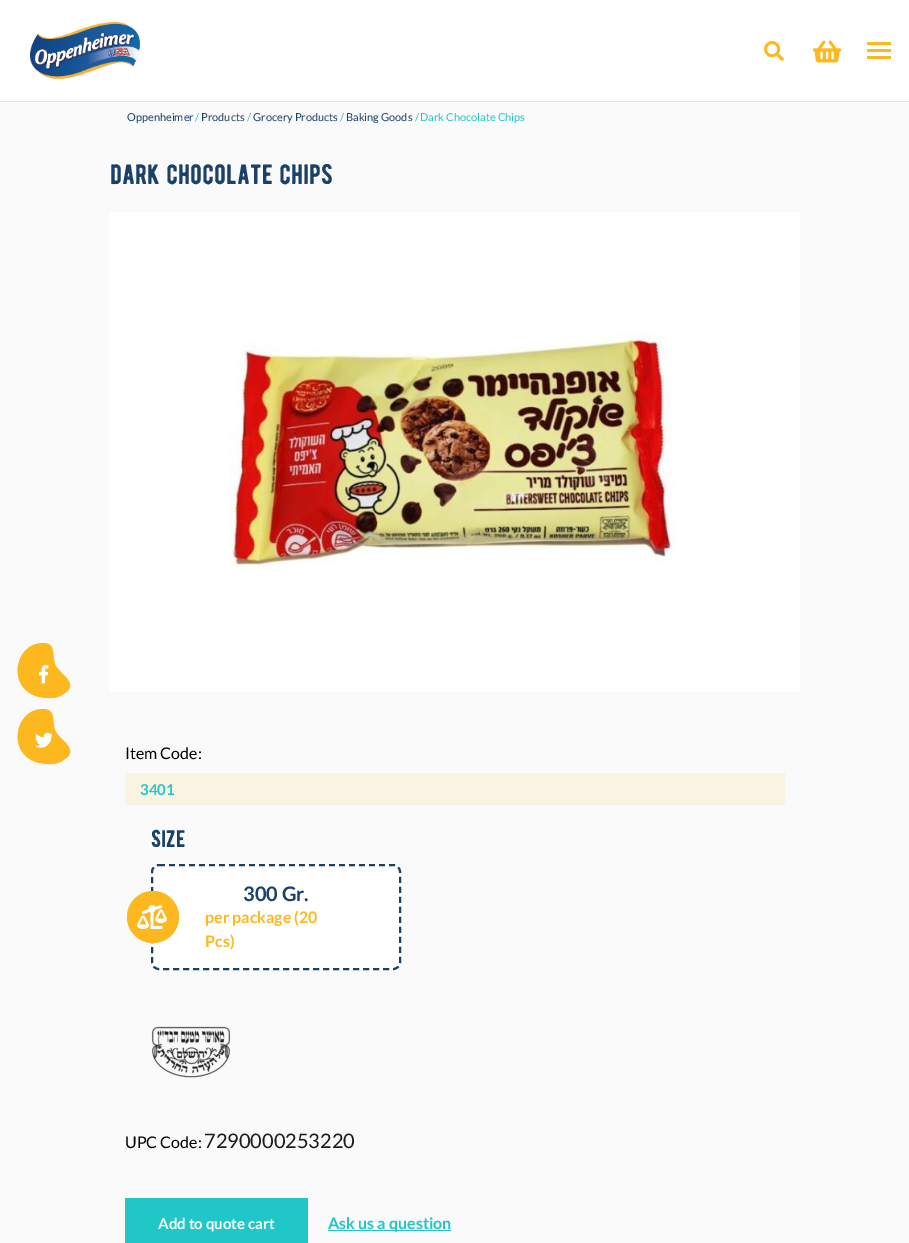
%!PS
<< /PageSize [909 1243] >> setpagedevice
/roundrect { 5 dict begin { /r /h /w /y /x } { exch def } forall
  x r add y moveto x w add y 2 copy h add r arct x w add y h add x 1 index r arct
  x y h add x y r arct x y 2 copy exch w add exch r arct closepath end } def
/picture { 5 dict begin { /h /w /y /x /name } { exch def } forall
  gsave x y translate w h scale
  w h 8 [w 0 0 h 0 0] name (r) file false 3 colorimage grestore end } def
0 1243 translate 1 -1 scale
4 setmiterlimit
0.98 setgray
0 0 909 1243 rectfill
1 setgray
0 0 909 101 rectfill
0.89 setgray
0 101 909 1 rectfill
(img1.rgb) 30 22 111 58 picture
0.992 0.722 0.122 setrgbcolor
867 42 24 3 rectfill
867 49 24 3 rectfill
867 56 24 3 rectfill
(img2.rgb) 764 41 20 20 picture
(img3.rgb) 813 40 29 23 picture
newpath 43 643 moveto 11 643 5 699 50 698 curveto 56 698 60 697 65 693 curveto 80 683 58 673 55 664 curveto 52 655 56 643 43 643 curveto closepath fill
(img4.rgb) 39 665 10 19 picture
newpath 43 709 moveto 11 709 5 765 50 764 curveto 56 764 60 763 65 759 curveto 80 749 58 739 55 730 curveto 52 721 56 709 43 709 curveto closepath fill
(img5.rgb) 35 732 17 16 picture
/Lato-Regular [11 0 0 -11 0 0] selectfont
0.102 0.255 0.416 setrgbcolor
127 121 moveto (Oppenheimer) show
0.129 0.78 0.78 setrgbcolor
195 121 moveto (/) show
0.102 0.255 0.416 setrgbcolor
201 121 moveto (Products) show
0.129 0.78 0.78 setrgbcolor
247 121 moveto (/) show
0.102 0.255 0.416 setrgbcolor
253 121 moveto (Grocery Products) show
0.129 0.78 0.78 setrgbcolor
340 121 moveto (/) show
0.102 0.255 0.416 setrgbcolor
346 121 moveto (Baking Goods) show
0.129 0.78 0.78 setrgbcolor
415 121 moveto (/) show
420 121 moveto (Dark Chocolate Chips) show
/Lato-Regular [16 0 0 -16 0 0] selectfont
0 setgray
125 759 moveto (Item Code:) show
0.98 0.953 0.894 setrgbcolor
125 773 660 32 rectfill
/Lato-Bold [15 0 0 -15 0 0] selectfont
0.129 0.78 0.78 setrgbcolor
140 795 moveto (3401) show
/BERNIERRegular-Regular [24 0 0 -24 0 0] selectfont
0.102 0.255 0.416 setrgbcolor
151 847 moveto (Size) show
1 setgray
151 864 250 106 8 roundrect fill
0.102 0.255 0.416 setrgbcolor
2 setlinewidth
[6 4] 0 setdash
newpath 159 865 moveto 393 865 lineto 397 865 400 868 400 872 curveto 400 962 lineto 400 966 397 969 393 969 curveto 159 969 lineto 155 969 152 966 152 962 curveto 152 872 lineto 152 868 155 865 159 865 curveto closepath stroke
0.992 0.722 0.122 setrgbcolor
newpath 153 917 26 0 360 arc closepath fill
(img6.rgb) 137 905 30 24 picture
/Lato-Bold [20 0 0 -20 0 0] selectfont
0.102 0.255 0.416 setrgbcolor
243 901 moveto (300 Gr.) show
/Lato-Bold [16 0 0 -16 0 0] selectfont
0.992 0.722 0.122 setrgbcolor
205 923 moveto (per package \(20) show
205 947 moveto (Pcs\)) show
(img7.rgb) 151 1026 80 52 picture
/Lato-Regular [16 0 0 -16 0 0] selectfont
0 setgray
125 1148 moveto (UPC Code:) show
/Lato-Regular [20 0 0 -20 0 0] selectfont
0.11 setgray
204 1148 moveto (7290000253220) show
0.129 0.78 0.78 setrgbcolor
125 1198 183 45 rectfill
/Lato-Bold [15 0 0 -15 0 0] selectfont
1 setgray
158 1229 moveto (Add to quote cart) show
0.129 0.78 0.78 setrgbcolor
328 1230 123 1 rectfill
/Lato-Bold [16 0 0 -16 0 0] selectfont
328 1229 moveto (Ask us a question) show
/BERNIERRegular-Regular [28 0 0 -28 0 0] selectfont
0.102 0.255 0.416 setrgbcolor
110 184 moveto (dark chocolate chips) show
1 setgray
110 212 690 480 rectfill
(img8.rgb) 230 330 447 242 picture
showpage
